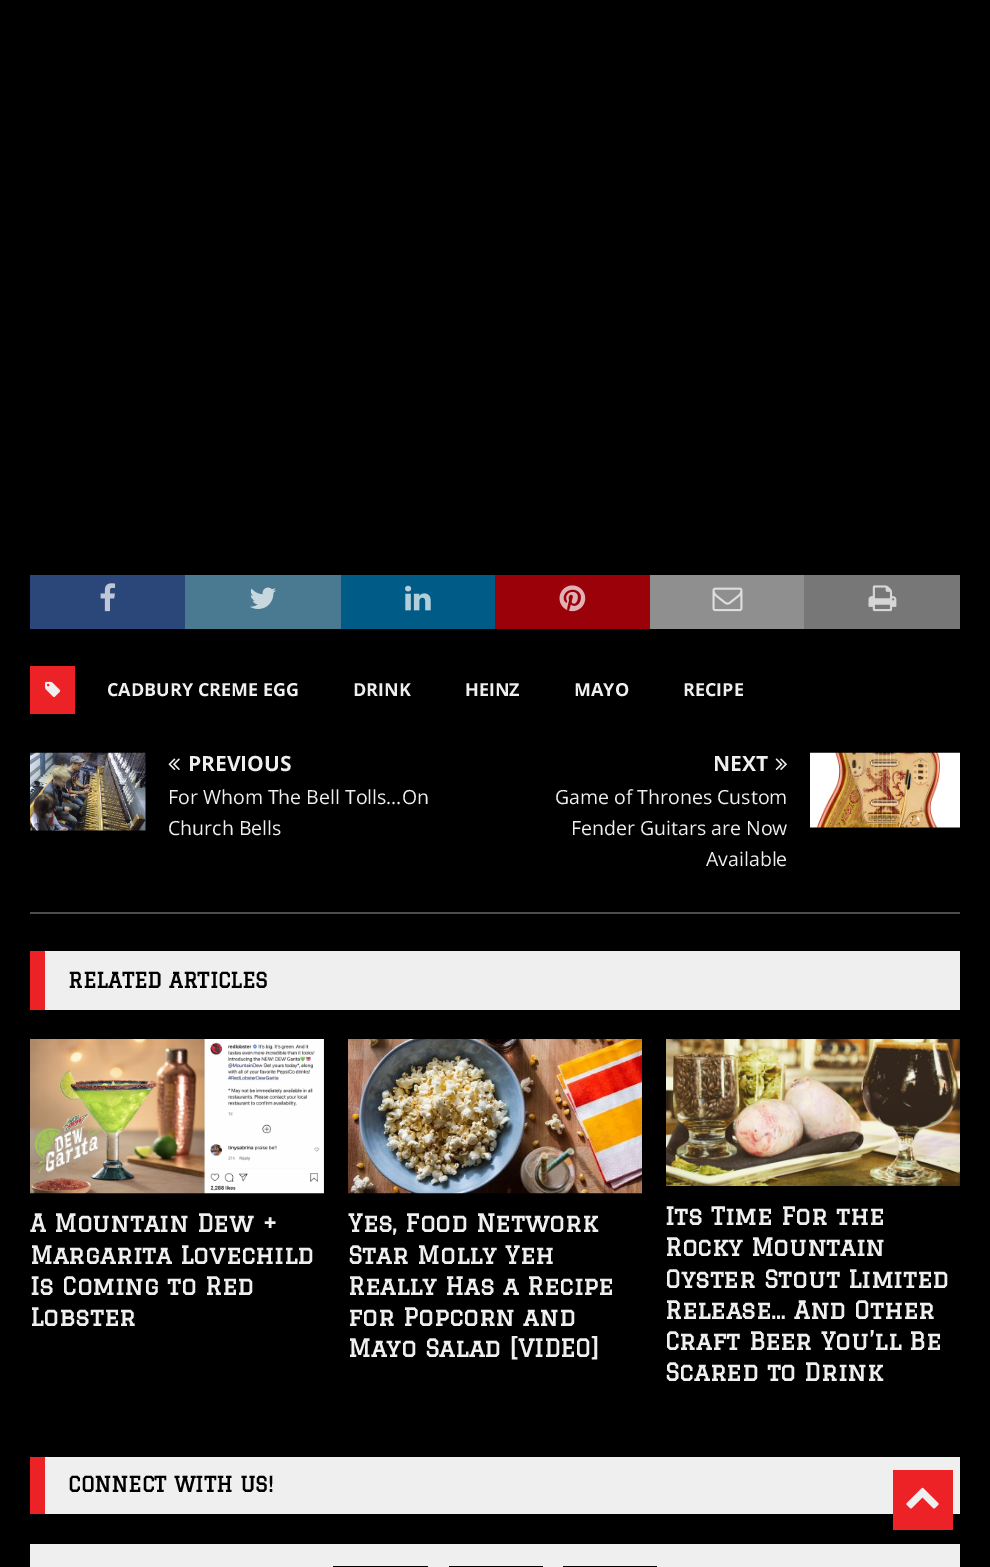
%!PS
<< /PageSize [990 1567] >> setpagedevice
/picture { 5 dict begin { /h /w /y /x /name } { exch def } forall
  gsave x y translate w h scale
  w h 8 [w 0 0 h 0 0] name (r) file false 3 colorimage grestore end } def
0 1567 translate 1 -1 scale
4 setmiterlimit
0 setgray
0 0 990 1567 rectfill
0.169 0.275 0.475 setrgbcolor
30 575 155 54 rectfill
(img1.rgb) 100 583 16 29 picture
0.29 0.475 0.573 setrgbcolor
185 575 156 54 rectfill
(img2.rgb) 250 587 26 22 picture
0 0.361 0.525 setrgbcolor
341 575 154 54 rectfill
(img3.rgb) 405 585 26 26 picture
0.608 0.004 0.035 setrgbcolor
495 575 155 54 rectfill
(img4.rgb) 559 585 27 27 picture
0.561 setgray
650 575 154 54 rectfill
(img5.rgb) 712 587 31 25 picture
0.467 setgray
804 575 156 54 rectfill
(img6.rgb) 868 585 29 27 picture
0.925 0.133 0.153 setrgbcolor
30 666 45 48 rectfill
(img7.rgb) 45 681 16 16 picture
/OpenSans-Bold [18 0 0 -18 0 0] selectfont
0.937 setgray
107 696 moveto (CADBURY CREME EGG) show
353 696 moveto (DRINK) show
465 696 moveto (HEINZ) show
574 696 moveto (MAYO) show
683 696 moveto (RECIPE) show
0.302 setgray
30 912 930 2 rectfill
(img8.rgb) 30 752 116 79 picture
(img9.rgb) 168 758 12 12 picture
/OpenSans-Bold [21 0 0 -21 0 0] selectfont
0.937 setgray
188 771 moveto (PREVIOUS) show
/OpenSans-Regular [19.5 0 0 -19.5 0 0] selectfont
168 804 moveto (For Whom The Bell Tolls…On) show
168 835 moveto (Church Bells) show
/OpenSans-Bold [21 0 0 -21 0 0] selectfont
713 771 moveto (NEXT) show
(img10.rgb) 775 758 12 12 picture
(img11.rgb) 810 752 150 76 picture
/OpenSans-Regular [19.5 0 0 -19.5 0 0] selectfont
555 804 moveto (Game of Thrones Custom) show
571 835 moveto (Fender Guitars are Now) show
706 866 moveto (Available) show
45 951 915 59 rectfill
0.925 0.133 0.153 setrgbcolor
30 951 15 59 rectfill
/Graduate-Bold [21 0 0 -21 0 0] selectfont
0 setgray
68 988 moveto (RELATED ARTICLES) show
(img12.rgb) 30 1039 294 155 picture
/Graduate-Bold [24 0 0 -24 0 0] selectfont
0.937 setgray
30 1232 moveto (A Mountain Dew +) show
30 1264 moveto (Margarita Lovechild) show
30 1295 moveto (Is Coming to Red) show
30 1326 moveto (Lobster) show
(img13.rgb) 348 1039 294 155 picture
348 1232 moveto (Yes, Food Network) show
348 1264 moveto (Star Molly Yeh) show
348 1295 moveto (Really Has a Recipe) show
348 1326 moveto (for Popcorn and) show
348 1357 moveto (Mayo Salad [VIDEO]) show
(img14.rgb) 666 1039 294 147 picture
665 1225 moveto (Its Time For the) show
665 1256 moveto (Rocky Mountain) show
665 1288 moveto (Oyster Stout Limited) show
665 1319 moveto (Release… And Other) show
665 1350 moveto (Craft Beer You’ll Be) show
665 1381 moveto (Scared to Drink) show
45 1457 915 57 rectfill
0.925 0.133 0.153 setrgbcolor
30 1457 15 57 rectfill
/Graduate-Bold [21 0 0 -21 0 0] selectfont
0 setgray
68 1492 moveto (CONNECT WITH US!) show
0.937 setgray
30 1544 930 23 rectfill
0 setgray
333 1566 95 1 rectfill
449 1566 94 1 rectfill
563 1566 94 1 rectfill
0.925 0.133 0.153 setrgbcolor
893 1470 60 60 rectfill
(img15.rgb) 906 1487 33 22 picture
showpage
